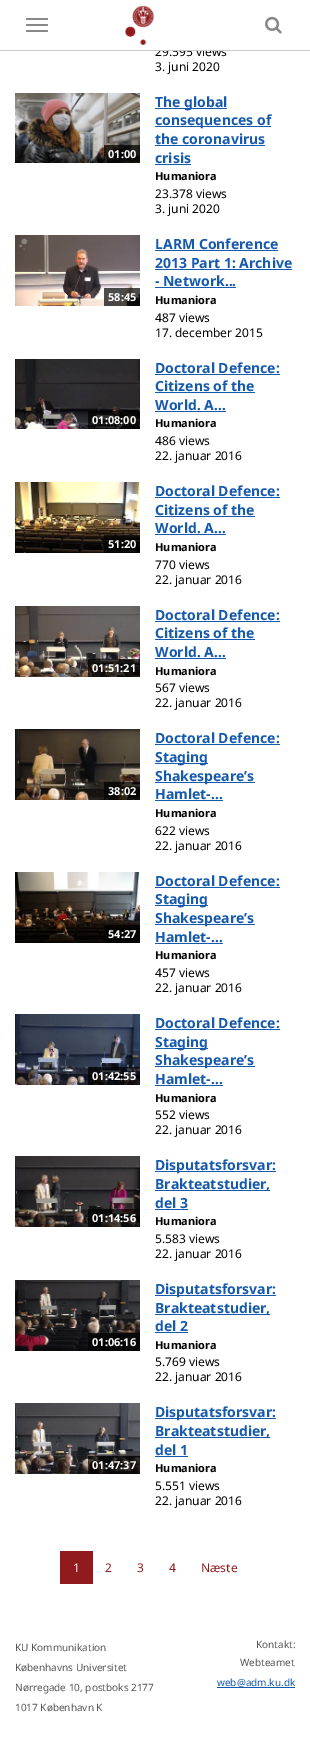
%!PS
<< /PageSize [310 1747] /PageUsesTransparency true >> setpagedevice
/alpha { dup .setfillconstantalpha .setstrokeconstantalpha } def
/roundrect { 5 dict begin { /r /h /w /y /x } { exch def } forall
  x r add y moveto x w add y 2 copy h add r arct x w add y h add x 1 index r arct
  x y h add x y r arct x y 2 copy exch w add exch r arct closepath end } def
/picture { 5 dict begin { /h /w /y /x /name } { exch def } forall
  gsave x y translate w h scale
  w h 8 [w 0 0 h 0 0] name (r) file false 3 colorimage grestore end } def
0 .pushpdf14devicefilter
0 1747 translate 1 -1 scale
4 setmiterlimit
1 setgray
0 0 310 1747 rectfill
/NotoSans-Regular [12 0 0 -12 0 0] selectfont
0 setgray
155 56 moveto (29.595 views) show
1 setgray
155 47 72 3 rectfill
0.8 setgray
0 50 310 1 rectfill
0.533 setgray
26 18 22 2 1 roundrect fill
26 24 22 2 1 roundrect fill
26 30 22 2 1 roundrect fill
(img1.rgb) 124 5 31 40 picture
(img2.rgb) 265 16 17 18 picture
0 setgray
155 71 moveto (3. juni 2020) show
(img3.rgb) 15 93 125 70 picture
0.7 alpha
104 145 36 18 rectfill
/NotoSans-Bold [11 0 0 -11 0 0] selectfont
1 alpha
1 setgray
108 158 moveto (01:00) show
0.086 0.353 0.678 setrgbcolor
155 108 72 1 rectfill
/NotoSans-Bold [14 0 0 -14 0 0] selectfont
155 107 moveto (The global) show
155 126 116 1 rectfill
155 125 moveto (consequences of) show
155 144 moveto (the coronavirus) show
155 145 110 1 rectfill
155 163 moveto (crisis) show
155 164 36 1 rectfill
/NotoSans-Bold [11 0 0 -11 0 0] selectfont
0 setgray
155 180 moveto (Humaniora) show
/NotoSans-Regular [12 0 0 -12 0 0] selectfont
155 198 moveto (23.378 views) show
155 213 moveto (3. juni 2020) show
(img4.rgb) 15 235 125 71 picture
0.7 alpha
104 288 36 18 rectfill
/NotoSans-Bold [11 0 0 -11 0 0] selectfont
1 alpha
1 setgray
108 301 moveto (58:45) show
/NotoSans-Bold [14 0 0 -14 0 0] selectfont
0.086 0.353 0.678 setrgbcolor
155 249 moveto (LARM Conference) show
155 250 123 1 rectfill
155 268 moveto (2013 Part 1: Archive) show
155 269 137 1 rectfill
155 286 moveto (- Network...) show
155 287 81 1 rectfill
/NotoSans-Bold [11 0 0 -11 0 0] selectfont
0 setgray
155 304 moveto (Humaniora) show
/NotoSans-Regular [12 0 0 -12 0 0] selectfont
155 322 moveto (487 views) show
155 337 moveto (17. december 2015) show
(img5.rgb) 15 359 125 70 picture
0.7 alpha
88 411 52 18 rectfill
/NotoSans-Bold [11 0 0 -11 0 0] selectfont
1 alpha
1 setgray
92 424 moveto (01:08:00) show
/NotoSans-Bold [14 0 0 -14 0 0] selectfont
0.086 0.353 0.678 setrgbcolor
155 373 moveto (Doctoral Defence:) show
155 374 125 1 rectfill
155 391 moveto (Citizens of the) show
155 392 100 1 rectfill
155 410 moveto (World. A...) show
155 411 71 1 rectfill
/NotoSans-Bold [11 0 0 -11 0 0] selectfont
0 setgray
155 427 moveto (Humaniora) show
/NotoSans-Regular [12 0 0 -12 0 0] selectfont
155 445 moveto (486 views) show
155 460 moveto (22. januar 2016) show
(img6.rgb) 15 482 125 71 picture
0.7 alpha
104 535 36 18 rectfill
/NotoSans-Bold [11 0 0 -11 0 0] selectfont
1 alpha
1 setgray
108 548 moveto (51:20) show
/NotoSans-Bold [14 0 0 -14 0 0] selectfont
0.086 0.353 0.678 setrgbcolor
155 496 moveto (Doctoral Defence:) show
155 497 125 1 rectfill
155 515 moveto (Citizens of the) show
155 516 100 1 rectfill
155 533 moveto (World. A...) show
155 534 71 1 rectfill
/NotoSans-Bold [11 0 0 -11 0 0] selectfont
0 setgray
155 551 moveto (Humaniora) show
/NotoSans-Regular [12 0 0 -12 0 0] selectfont
155 569 moveto (770 views) show
155 584 moveto (22. januar 2016) show
(img7.rgb) 15 606 125 71 picture
0.7 alpha
88 659 52 18 rectfill
/NotoSans-Bold [11 0 0 -11 0 0] selectfont
1 alpha
1 setgray
92 672 moveto (01:51:21) show
/NotoSans-Bold [14 0 0 -14 0 0] selectfont
0.086 0.353 0.678 setrgbcolor
155 620 moveto (Doctoral Defence:) show
155 621 125 1 rectfill
155 638 moveto (Citizens of the) show
155 639 100 1 rectfill
155 657 moveto (World. A...) show
155 658 71 1 rectfill
/NotoSans-Bold [11 0 0 -11 0 0] selectfont
0 setgray
155 675 moveto (Humaniora) show
/NotoSans-Regular [12 0 0 -12 0 0] selectfont
155 692 moveto (567 views) show
155 707 moveto (22. januar 2016) show
(img8.rgb) 15 729 125 71 picture
0.7 alpha
104 782 36 18 rectfill
/NotoSans-Bold [11 0 0 -11 0 0] selectfont
1 alpha
1 setgray
108 795 moveto (38:02) show
/NotoSans-Bold [14 0 0 -14 0 0] selectfont
0.086 0.353 0.678 setrgbcolor
155 743 moveto (Doctoral Defence:) show
155 744 125 1 rectfill
155 763 53 1 rectfill
155 762 moveto (Staging) show
155 782 100 1 rectfill
155 781 moveto (Shakespeare’s) show
155 799 moveto (Hamlet-...) show
155 800 68 1 rectfill
/NotoSans-Bold [11 0 0 -11 0 0] selectfont
0 setgray
155 817 moveto (Humaniora) show
/NotoSans-Regular [12 0 0 -12 0 0] selectfont
155 835 moveto (622 views) show
155 850 moveto (22. januar 2016) show
(img9.rgb) 15 872 125 71 picture
0.7 alpha
104 925 36 18 rectfill
/NotoSans-Bold [11 0 0 -11 0 0] selectfont
1 alpha
1 setgray
108 938 moveto (54:27) show
/NotoSans-Bold [14 0 0 -14 0 0] selectfont
0.086 0.353 0.678 setrgbcolor
155 886 moveto (Doctoral Defence:) show
155 887 125 1 rectfill
155 905 53 1 rectfill
155 904 moveto (Staging) show
155 924 100 1 rectfill
155 923 moveto (Shakespeare’s) show
155 942 moveto (Hamlet-...) show
155 943 68 1 rectfill
/NotoSans-Bold [11 0 0 -11 0 0] selectfont
0 setgray
155 959 moveto (Humaniora) show
/NotoSans-Regular [12 0 0 -12 0 0] selectfont
155 977 moveto (457 views) show
155 992 moveto (22. januar 2016) show
(img10.rgb) 15 1014 125 71 picture
0.7 alpha
88 1067 52 18 rectfill
/NotoSans-Bold [11 0 0 -11 0 0] selectfont
1 alpha
1 setgray
92 1080 moveto (01:42:55) show
/NotoSans-Bold [14 0 0 -14 0 0] selectfont
0.086 0.353 0.678 setrgbcolor
155 1028 moveto (Doctoral Defence:) show
155 1029 125 1 rectfill
155 1048 53 1 rectfill
155 1047 moveto (Staging) show
155 1066 100 1 rectfill
155 1065 moveto (Shakespeare’s) show
155 1084 moveto (Hamlet-...) show
155 1085 68 1 rectfill
/NotoSans-Bold [11 0 0 -11 0 0] selectfont
0 setgray
155 1102 moveto (Humaniora) show
/NotoSans-Regular [12 0 0 -12 0 0] selectfont
155 1119 moveto (552 views) show
155 1134 moveto (22. januar 2016) show
(img11.rgb) 15 1156 125 71 picture
0.7 alpha
88 1209 52 18 rectfill
/NotoSans-Bold [11 0 0 -11 0 0] selectfont
1 alpha
1 setgray
92 1222 moveto (01:14:56) show
0.086 0.353 0.678 setrgbcolor
155 1171 121 1 rectfill
/NotoSans-Bold [14 0 0 -14 0 0] selectfont
155 1170 moveto (Disputatsforsvar:) show
155 1190 115 1 rectfill
155 1189 moveto (Brakteatstudier,) show
155 1208 moveto (del 3) show
155 1209 33 1 rectfill
/NotoSans-Bold [11 0 0 -11 0 0] selectfont
0 setgray
155 1225 moveto (Humaniora) show
/NotoSans-Regular [12 0 0 -12 0 0] selectfont
155 1243 moveto (5.583 views) show
155 1258 moveto (22. januar 2016) show
(img12.rgb) 15 1280 125 71 picture
0.7 alpha
88 1333 52 18 rectfill
/NotoSans-Bold [11 0 0 -11 0 0] selectfont
1 alpha
1 setgray
92 1346 moveto (01:06:16) show
0.086 0.353 0.678 setrgbcolor
155 1295 121 1 rectfill
/NotoSans-Bold [14 0 0 -14 0 0] selectfont
155 1294 moveto (Disputatsforsvar:) show
155 1314 115 1 rectfill
155 1313 moveto (Brakteatstudier,) show
155 1331 moveto (del 2) show
155 1332 33 1 rectfill
/NotoSans-Bold [11 0 0 -11 0 0] selectfont
0 setgray
155 1349 moveto (Humaniora) show
/NotoSans-Regular [12 0 0 -12 0 0] selectfont
155 1366 moveto (5.769 views) show
155 1381 moveto (22. januar 2016) show
(img13.rgb) 15 1403 125 71 picture
0.7 alpha
88 1456 52 18 rectfill
/NotoSans-Bold [11 0 0 -11 0 0] selectfont
1 alpha
1 setgray
92 1469 moveto (01:47:37) show
0.086 0.353 0.678 setrgbcolor
155 1418 121 1 rectfill
/NotoSans-Bold [14 0 0 -14 0 0] selectfont
155 1417 moveto (Disputatsforsvar:) show
155 1437 115 1 rectfill
155 1436 moveto (Brakteatstudier,) show
155 1455 moveto (del 1) show
155 1456 33 1 rectfill
/NotoSans-Bold [11 0 0 -11 0 0] selectfont
0 setgray
155 1472 moveto (Humaniora) show
/NotoSans-Regular [12 0 0 -12 0 0] selectfont
155 1490 moveto (5.551 views) show
155 1505 moveto (22. januar 2016) show
0.565 0.102 0.118 setrgbcolor
60 1551 33 33 rectfill
1 setgray
73 1572 moveto (1) show
0.565 0.102 0.118 setrgbcolor
105 1572 moveto (2) show
137 1572 moveto (3) show
169 1572 moveto (4) show
201 1572 moveto (Næste) show
/NotoSans-Regular [10 0 0 -10 0 0] selectfont
0.345 setgray
15 1651 moveto (KU Kommunikation) show
15 1671 moveto (Københavns Universitet) show
15 1691 moveto (Nørregade 10, postboks 2177) show
15 1711 moveto (1017 København K) show
256 1648 moveto (Kontakt:) show
240 1666 moveto (Webteamet) show
0.086 0.353 0.678 setrgbcolor
217 1686 moveto (web@adm.ku.dk) show
217 1687 78 1 rectfill
.poppdf14devicefilter showpage
